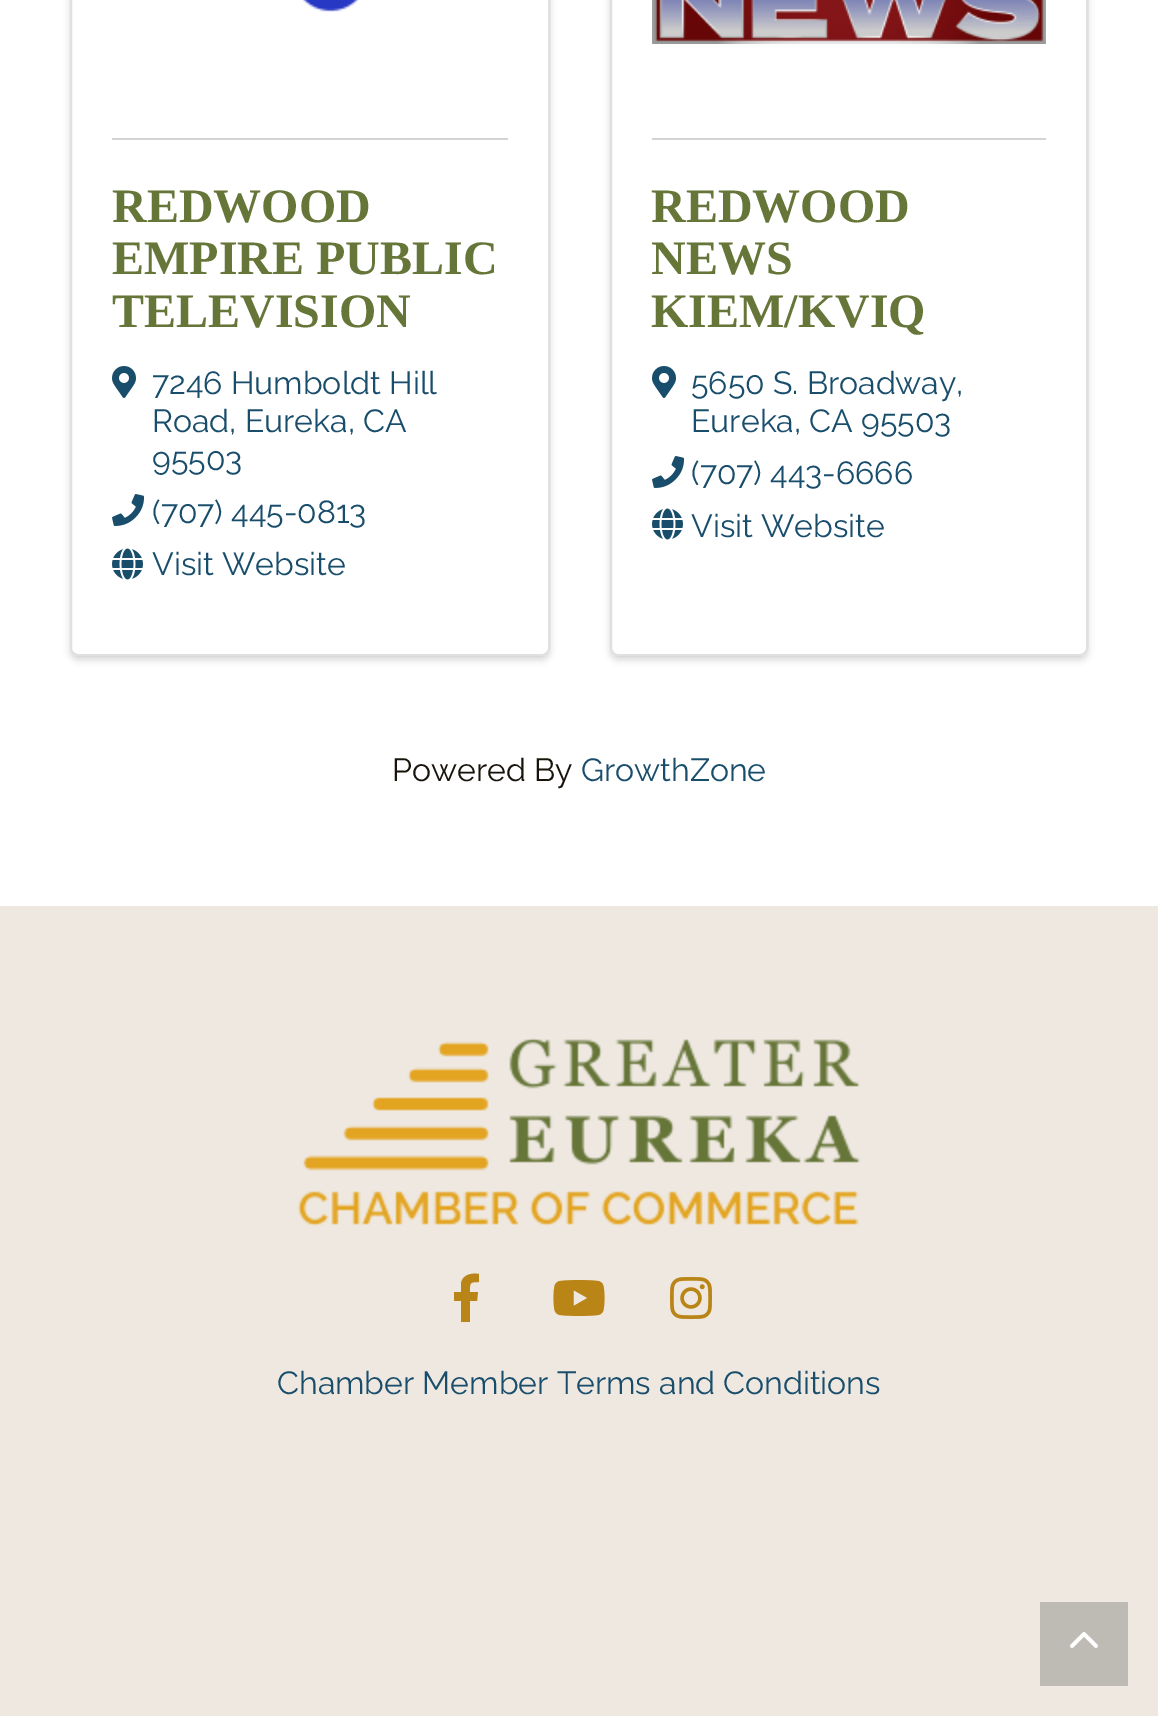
%!PS
<< /PageSize [1158 1716] /PageUsesTransparency true >> setpagedevice
/alpha { dup .setfillconstantalpha .setstrokeconstantalpha } def
/roundrect { 5 dict begin { /r /h /w /y /x } { exch def } forall
  x r add y moveto x w add y 2 copy h add r arct x w add y h add x 1 index r arct
  x y h add x y r arct x y 2 copy exch w add exch r arct closepath end } def
/shadow { 12 dict begin { /a /b /q /h /w /y /x } { exch def } forall gsave /was 0 def
  9 -2 -9 { dup b mul 4 div /e exch def 1 sub .425 mul 2.718 exch exp 1 add a .99 .min exch div /now exch def
    1 1 now sub 1 was sub div sub alpha /was now def
    w h .min e 2 mul add 0 gt { x e sub y e sub w e 2 mul add h e 2 mul add
      q e add b .6 mul add w h .min 2 div e add .min 0 .max roundrect fill } if } for grestore end } def
/picture { 5 dict begin { /h /w /y /x /name } { exch def } forall
  gsave x y translate w h scale
  w h 8 [w 0 0 h 0 0] name (r) file false 3 colorimage grestore end } def
0 .pushpdf14devicefilter
0 1716 translate 1 -1 scale
4 setmiterlimit
1 setgray
0 0 1158 1716 rectfill
0 setgray
70 -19 480 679 8 3.5 0.15 shadow
1 setgray
70 -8 480 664 8 roundrect fill
0.12 alpha
0 setgray
2 setlinewidth
71 -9 478 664 7 roundrect stroke
1 alpha
(img1.rgb) 302 0 57 12 picture
0.831 setgray
112 138 396 2 rectfill
/LiberationSerif-Bold [48 0 0 -48 0 0] selectfont
0.4 0.459 0.22 setrgbcolor
112 222 moveto (REDWOOD) show
112 274 moveto (EMPIRE PUBLIC) show
112 327 moveto (TELEVISION) show
(img2.rgb) 112 366 24 32 picture
/Raleway-Regular [32 0 0 -32 0 0] selectfont
0.094 0.302 0.42 setrgbcolor
152 394 moveto (7246 Humboldt Hill) show
152 432 moveto (Road, Eureka, CA) show
152 470 moveto (95503) show
(img3.rgb) 112 494 33 32 picture
152 523 moveto (\(707\) 445-0813) show
(img4.rgb) 112 548 31 32 picture
152 575 moveto (Visit Website) show
0 setgray
610 -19 478 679 8 3.5 0.15 shadow
1 setgray
610 -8 478 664 8 roundrect fill
0.12 alpha
0 setgray
611 -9 476 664 7 roundrect stroke
1 alpha
(img5.rgb) 652 0 394 44 picture
0.831 setgray
652 138 394 2 rectfill
/LiberationSerif-Bold [48 0 0 -48 0 0] selectfont
0.4 0.459 0.22 setrgbcolor
651 222 moveto (REDWOOD) show
651 274 moveto (NEWS) show
651 327 moveto (KIEM/KVIQ) show
(img2.rgb) 652 366 24 32 picture
/Raleway-Regular [32 0 0 -32 0 0] selectfont
0.094 0.302 0.42 setrgbcolor
691 394 moveto (5650 S. Broadway,) show
691 432 moveto (Eureka, CA 95503) show
(img3.rgb) 652 456 33 32 picture
691 484 moveto (\(707\) 443-6666) show
(img4.rgb) 652 508 31 32 picture
691 537 moveto (Visit Website) show
0.098 0.078 0.043 setrgbcolor
392 781 moveto (Powered By) show
0.094 0.302 0.42 setrgbcolor
581 781 moveto (GrowthZone) show
0.933 0.91 0.882 setrgbcolor
0 906 1158 810 rectfill
(img6.rgb) 297 1038 564 189 picture
0.729 0.522 0.09 setrgbcolor
newpath 461 1322 moveto 461 1301 lineto 454 1301 lineto 454 1292 lineto 461 1292 lineto 461 1283 lineto 463 1274 472 1273 479 1274 curveto 479 1282 lineto 469 1282 470 1283 470 1292 curveto 478 1292 lineto 477 1301 lineto 470 1301 lineto 470 1322 lineto closepath fill
(img7.rgb) 553 1280 52 36 picture
(img8.rgb) 670 1277 42 42 picture
0.094 0.302 0.42 setrgbcolor
277 1394 moveto (Chamber Member Terms and Conditions) show
0.745 0.729 0.706 setrgbcolor
1040 1602 88 84 rectfill
(img9.rgb) 1070 1632 28 16 picture
.poppdf14devicefilter showpage
